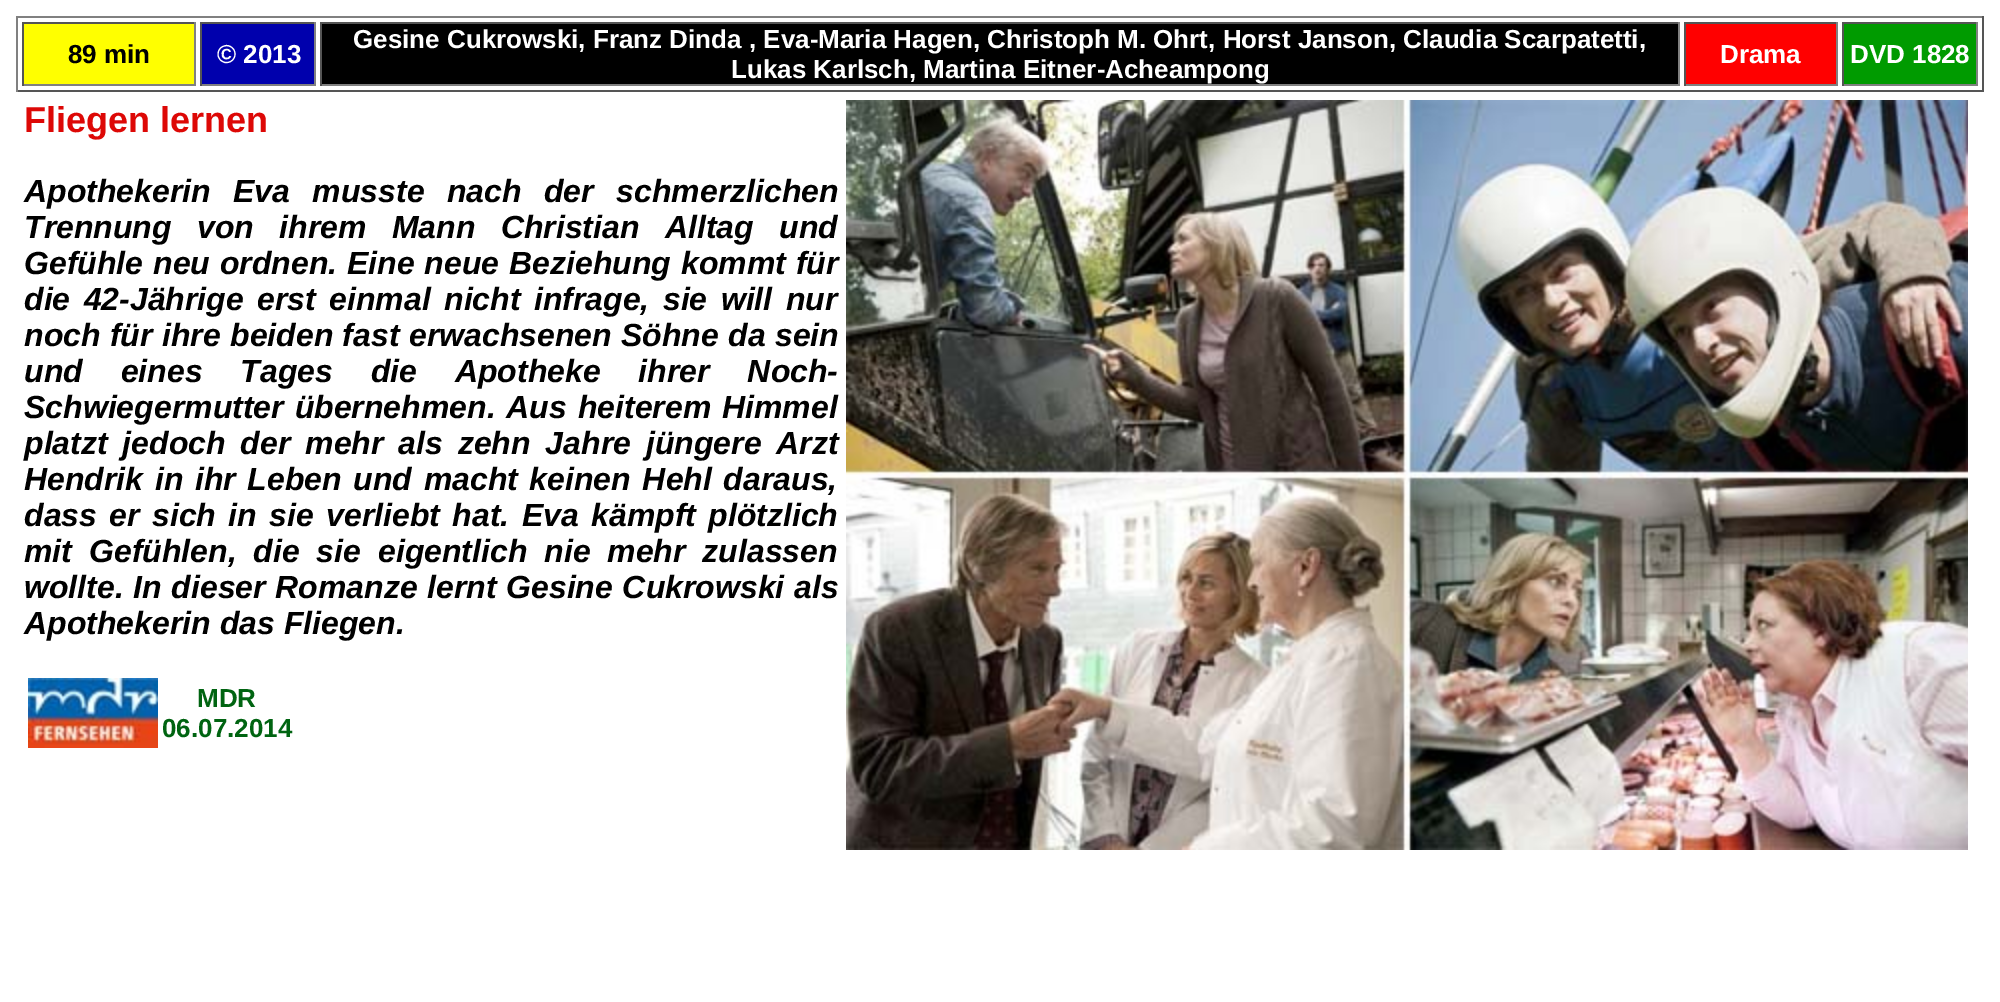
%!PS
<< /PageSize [2000 1002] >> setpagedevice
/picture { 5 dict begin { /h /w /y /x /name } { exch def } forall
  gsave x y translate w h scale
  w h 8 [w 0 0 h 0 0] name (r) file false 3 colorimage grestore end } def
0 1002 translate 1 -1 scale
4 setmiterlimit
1 setgray
0 0 2000 1002 rectfill
0.502 setgray
16 16 1968 2 rectfill
0.333 setgray
1982 16 2 76 rectfill
16 90 1968 2 rectfill
0.502 setgray
16 16 2 76 rectfill
1 1 0 setrgbcolor
24 24 170 60 rectfill
0.333 setgray
22 22 174 2 rectfill
0.502 setgray
194 22 2 64 rectfill
22 84 174 2 rectfill
0.333 setgray
22 22 2 64 rectfill
/LiberationSans-Bold [26 0 0 -26 0 0] selectfont
0 setgray
68 63 moveto (89 min) show
0 0 0.678 setrgbcolor
202 24 112 60 rectfill
0.333 setgray
200 22 116 2 rectfill
0.502 setgray
314 22 2 64 rectfill
200 84 116 2 rectfill
0.333 setgray
200 22 2 64 rectfill
1 setgray
217 63 moveto (© 2013) show
0 setgray
322 24 1356 60 rectfill
0.333 setgray
320 22 1360 2 rectfill
0.502 setgray
1678 22 2 64 rectfill
320 84 1360 2 rectfill
0.333 setgray
320 22 2 64 rectfill
1 setgray
353 48 moveto (Gesine Cukrowski, Franz Dinda , Eva-Maria Hagen, Christoph M. Ohrt, Horst Janson, Claudia Scarpatetti,) show
731 78 moveto (Lukas Karlsch, Martina Eitner-Acheampong) show
1 0 0 setrgbcolor
1686 24 150 60 rectfill
0.333 setgray
1684 22 154 2 rectfill
0.502 setgray
1836 22 2 64 rectfill
1684 84 154 2 rectfill
0.333 setgray
1684 22 2 64 rectfill
1 setgray
1720 63 moveto (Drama) show
0 0.608 0 setrgbcolor
1844 24 132 60 rectfill
0.333 setgray
1842 22 136 2 rectfill
0.502 setgray
1976 22 2 64 rectfill
1842 84 136 2 rectfill
0.333 setgray
1842 22 2 64 rectfill
1 setgray
1850 63 moveto (DVD 1828) show
/LiberationSans-Bold [36 0 0 -36 0 0] selectfont
0.867 0.031 0.024 setrgbcolor
24 132 moveto (Fliegen lernen) show
(img1.rgb) 846 100 1122 750 picture
/LiberationSans-BoldItalic [32 0 0 -32 0 0] selectfont
0 setgray
24 202 moveto 13.5 0 32 (Apothekerin Eva musste nach der schmerzlichen) widthshow
24 238 moveto 16.5 0 32 (Trennung von ihrem Mann Christian Alltag und) widthshow
24 274 moveto 1 0 32 (Gefühle neu ordnen. Eine neue Beziehung kommt für) widthshow
24 310 moveto 4.5 0 32 (die 42-Jährige erst einmal nicht infrage, sie will nur) widthshow
24 346 moveto 0.5 0 32 (noch für ihre beiden fast erwachsenen Söhne da sein) widthshow
24 382 moveto 29 0 32 (und eines Tages die Apotheke ihrer Noch-) widthshow
24 418 moveto 2 0 32 (Schwiegermutter übernehmen. Aus heiterem Himmel) widthshow
24 454 moveto 6 0 32 (platzt jedoch der mehr als zehn Jahre jüngere Arzt) widthshow
24 490 moveto 2.75 0 32 (Hendrik in ihr Leben und macht keinen Hehl daraus,) widthshow
24 526 moveto 3.5 0 32 (dass er sich in sie verliebt hat. Eva kämpft plötzlich) widthshow
24 562 moveto 8 0 32 (mit Gefühlen, die sie eigentlich nie mehr zulassen) widthshow
24 598 moveto 0.75 0 32 (wollte. In dieser Romanze lernt Gesine Cukrowski als) widthshow
24 634 moveto (Apothekerin das Fliegen.) show
(img2.rgb) 28 678 130 70 picture
/LiberationSans-Bold [26 0 0 -26 0 0] selectfont
0 0.392 0.067 setrgbcolor
197 707 moveto (MDR) show
162 737 moveto (06.07.2014) show
showpage
